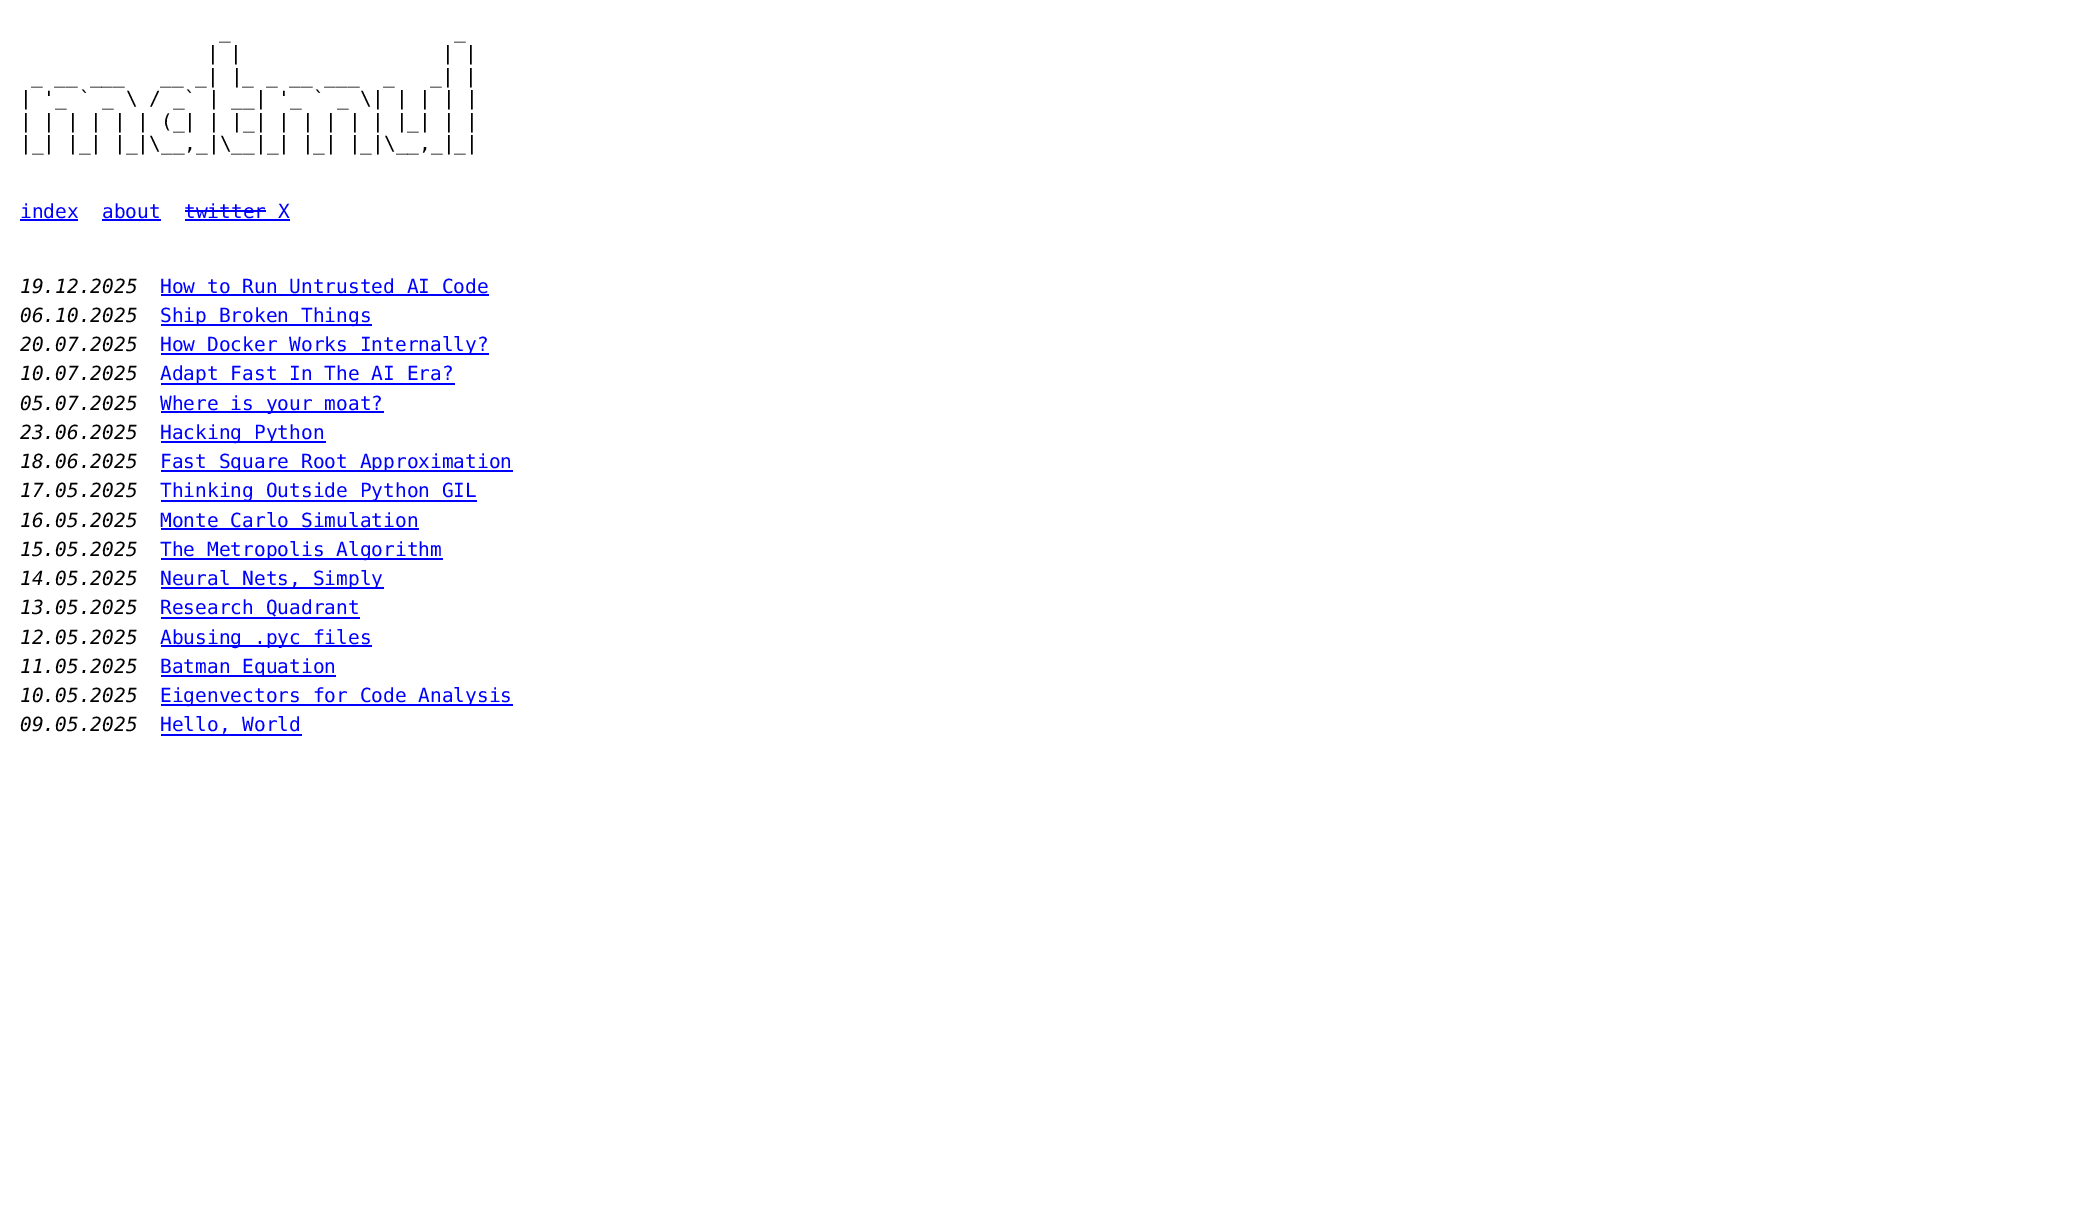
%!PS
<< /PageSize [2085 1223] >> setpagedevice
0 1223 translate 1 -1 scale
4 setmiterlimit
1 setgray
0 0 2085 1223 rectfill
/DejaVuSansMono-Regular [19.5 0 0 -19.5 0 0] selectfont
0 setgray
219 38 moveto (_                   _) show
207 60 moveto (| |                 | |) show
31 83 moveto (_ __ ___   __ _| |_ _ __ ___  _   _| |) show
20 105 moveto (| '_ ` _ \\ / _` | __| '_ ` _ \\| | | | |) show
20 128 moveto (| | | | | | \(_| | |_| | | | | | |_| | |) show
20 150 moveto (|_| |_| |_|\\__,_|\\__|_| |_| |_|\\__,_|_|) show
0 0 1 setrgbcolor
20 218 moveto (index) show
20 219 58 2 rectfill
102 218 moveto (about) show
102 219 59 2 rectfill
184 218 moveto (twitter X) show
185 219 105 2 rectfill
185 210 81 2 rectfill
/DejaVuSansMono-Italic [19.5 0 0 -19.5 0 0] selectfont
0 setgray
20 293 moveto (19.12.2025) show
/DejaVuSansMono-Regular [19.5 0 0 -19.5 0 0] selectfont
0 0 1 setrgbcolor
160 293 moveto (How to Run Untrusted AI Code) show
161 294 328 2 rectfill
/DejaVuSansMono-Italic [19.5 0 0 -19.5 0 0] selectfont
0 setgray
20 322 moveto (06.10.2025) show
0 0 1 setrgbcolor
161 324 211 2 rectfill
/DejaVuSansMono-Regular [19.5 0 0 -19.5 0 0] selectfont
160 322 moveto (Ship Broken Things) show
/DejaVuSansMono-Italic [19.5 0 0 -19.5 0 0] selectfont
0 setgray
20 351 moveto (20.07.2025) show
0 0 1 setrgbcolor
161 353 328 2 rectfill
/DejaVuSansMono-Regular [19.5 0 0 -19.5 0 0] selectfont
160 351 moveto (How Docker Works Internally?) show
/DejaVuSansMono-Italic [19.5 0 0 -19.5 0 0] selectfont
0 setgray
20 380 moveto (10.07.2025) show
0 0 1 setrgbcolor
161 383 294 2 rectfill
/DejaVuSansMono-Regular [19.5 0 0 -19.5 0 0] selectfont
160 380 moveto (Adapt Fast In The AI Era?) show
/DejaVuSansMono-Italic [19.5 0 0 -19.5 0 0] selectfont
0 setgray
20 410 moveto (05.07.2025) show
0 0 1 setrgbcolor
161 411 223 2 rectfill
/DejaVuSansMono-Regular [19.5 0 0 -19.5 0 0] selectfont
160 410 moveto (Where is your moat?) show
/DejaVuSansMono-Italic [19.5 0 0 -19.5 0 0] selectfont
0 setgray
20 439 moveto (23.06.2025) show
0 0 1 setrgbcolor
161 441 165 2 rectfill
/DejaVuSansMono-Regular [19.5 0 0 -19.5 0 0] selectfont
160 439 moveto (Hacking Python) show
/DejaVuSansMono-Italic [19.5 0 0 -19.5 0 0] selectfont
0 setgray
20 468 moveto (18.06.2025) show
0 0 1 setrgbcolor
161 470 352 2 rectfill
/DejaVuSansMono-Regular [19.5 0 0 -19.5 0 0] selectfont
160 468 moveto (Fast Square Root Approximation) show
/DejaVuSansMono-Italic [19.5 0 0 -19.5 0 0] selectfont
0 setgray
20 497 moveto (17.05.2025) show
0 0 1 setrgbcolor
161 500 316 2 rectfill
/DejaVuSansMono-Regular [19.5 0 0 -19.5 0 0] selectfont
160 497 moveto (Thinking Outside Python GIL) show
/DejaVuSansMono-Italic [19.5 0 0 -19.5 0 0] selectfont
0 setgray
20 527 moveto (16.05.2025) show
/DejaVuSansMono-Regular [19.5 0 0 -19.5 0 0] selectfont
0 0 1 setrgbcolor
160 527 moveto (Monte Carlo Simulation) show
161 528 258 2 rectfill
/DejaVuSansMono-Italic [19.5 0 0 -19.5 0 0] selectfont
0 setgray
20 556 moveto (15.05.2025) show
0 0 1 setrgbcolor
161 558 282 2 rectfill
/DejaVuSansMono-Regular [19.5 0 0 -19.5 0 0] selectfont
160 556 moveto (The Metropolis Algorithm) show
/DejaVuSansMono-Italic [19.5 0 0 -19.5 0 0] selectfont
0 setgray
20 585 moveto (14.05.2025) show
0 0 1 setrgbcolor
161 587 223 2 rectfill
/DejaVuSansMono-Regular [19.5 0 0 -19.5 0 0] selectfont
160 585 moveto (Neural Nets, Simply) show
/DejaVuSansMono-Italic [19.5 0 0 -19.5 0 0] selectfont
0 setgray
20 614 moveto (13.05.2025) show
/DejaVuSansMono-Regular [19.5 0 0 -19.5 0 0] selectfont
0 0 1 setrgbcolor
160 614 moveto (Research Quadrant) show
161 617 199 2 rectfill
/DejaVuSansMono-Italic [19.5 0 0 -19.5 0 0] selectfont
0 setgray
20 644 moveto (12.05.2025) show
0 0 1 setrgbcolor
161 645 211 2 rectfill
/DejaVuSansMono-Regular [19.5 0 0 -19.5 0 0] selectfont
160 644 moveto (Abusing .pyc files) show
/DejaVuSansMono-Italic [19.5 0 0 -19.5 0 0] selectfont
0 setgray
20 673 moveto (11.05.2025) show
0 0 1 setrgbcolor
161 675 175 2 rectfill
/DejaVuSansMono-Regular [19.5 0 0 -19.5 0 0] selectfont
160 673 moveto (Batman Equation) show
/DejaVuSansMono-Italic [19.5 0 0 -19.5 0 0] selectfont
0 setgray
20 702 moveto (10.05.2025) show
0 0 1 setrgbcolor
161 704 352 2 rectfill
/DejaVuSansMono-Regular [19.5 0 0 -19.5 0 0] selectfont
160 702 moveto (Eigenvectors for Code Analysis) show
/DejaVuSansMono-Italic [19.5 0 0 -19.5 0 0] selectfont
0 setgray
20 731 moveto (09.05.2025) show
/DejaVuSansMono-Regular [19.5 0 0 -19.5 0 0] selectfont
0 0 1 setrgbcolor
160 731 moveto (Hello, World) show
161 734 141 2 rectfill
showpage
